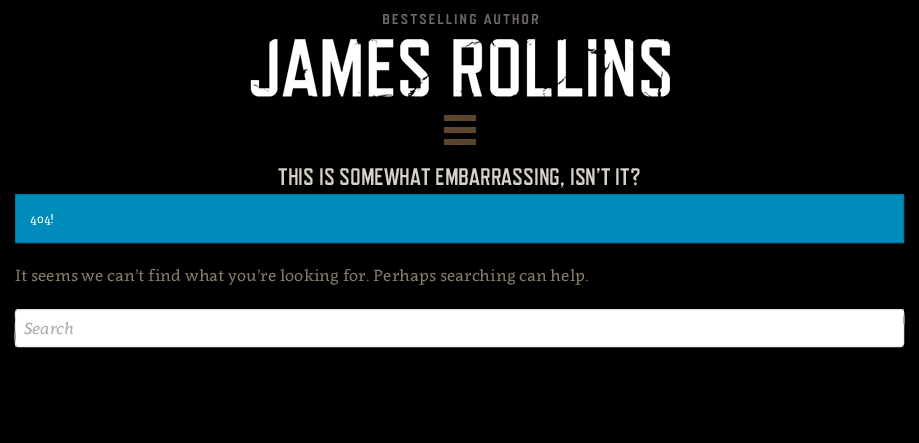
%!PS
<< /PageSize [919 443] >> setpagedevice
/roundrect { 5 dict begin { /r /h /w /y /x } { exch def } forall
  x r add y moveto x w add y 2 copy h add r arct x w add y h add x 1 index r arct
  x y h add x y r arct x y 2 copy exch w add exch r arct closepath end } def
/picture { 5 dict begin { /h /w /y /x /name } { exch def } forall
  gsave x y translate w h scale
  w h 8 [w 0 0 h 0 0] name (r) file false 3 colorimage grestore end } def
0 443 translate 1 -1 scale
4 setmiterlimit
0 setgray
0 0 919 443 rectfill
(img1.rgb) 250 14 420 83 picture
(img2.rgb) 444 115 32 30 picture
/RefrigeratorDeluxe-Bold [24 0 0 -24 0 0] selectfont
0.839 0.82 0.788 setrgbcolor
278 185 moveto (THIS IS SOMEWHAT EMBARRASSING, ISN’T IT?) show
0 0.549 0.729 setrgbcolor
newpath 15.5 194.5 moveto 903.5 194.5 lineto 903.5 242.5 lineto 15.5 242.5 lineto closepath gsave fill grestore
0 0.471 0.627 setrgbcolor
stroke
/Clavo-Regular [13 0 0 -13 0 0] selectfont
1 setgray
30 223 moveto (404!) show
/Clavo-Regular [16 0 0 -16 0 0] selectfont
0.525 0.482 0.408 setrgbcolor
15 281 moveto (It seems we can’t find what you’re looking for. Perhaps searching can help.) show
1 setgray
16 310 887 36 2 roundrect fill
0.941 setgray
newpath 903 310 moveto 904.5 312 903.5 330 903.5 333.5 curveto 903.5 338.5 lineto 903.5 340.5 904.5 346.5 901 346.5 curveto 18 346.5 lineto 16 346 lineto stroke
0.882 setgray
newpath 16 346 moveto 14.5 344 15.5 326 15.5 322.5 curveto 15.5 317.5 lineto 15.5 315.5 14.5 309.5 18 309.5 curveto 901 309.5 lineto 903 310 lineto stroke
/Clavo-Italic [16 0 0 -16 0 0] selectfont
0.667 setgray
24 334 moveto (Search) show
showpage
